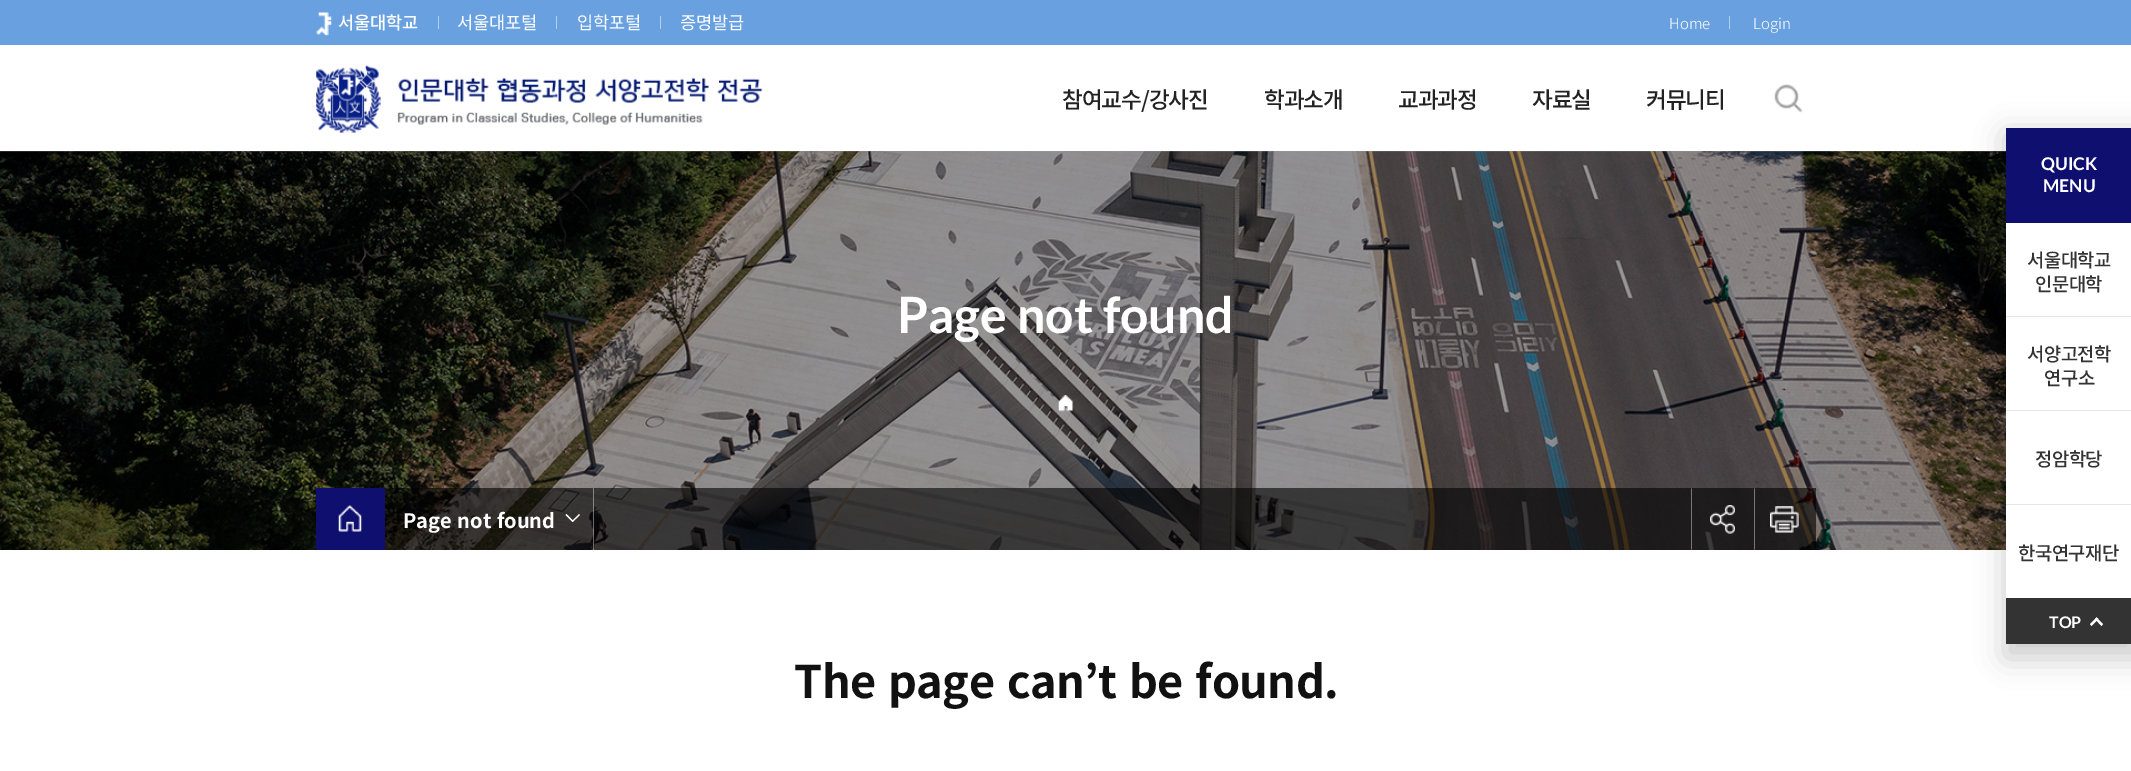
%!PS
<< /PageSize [2131 771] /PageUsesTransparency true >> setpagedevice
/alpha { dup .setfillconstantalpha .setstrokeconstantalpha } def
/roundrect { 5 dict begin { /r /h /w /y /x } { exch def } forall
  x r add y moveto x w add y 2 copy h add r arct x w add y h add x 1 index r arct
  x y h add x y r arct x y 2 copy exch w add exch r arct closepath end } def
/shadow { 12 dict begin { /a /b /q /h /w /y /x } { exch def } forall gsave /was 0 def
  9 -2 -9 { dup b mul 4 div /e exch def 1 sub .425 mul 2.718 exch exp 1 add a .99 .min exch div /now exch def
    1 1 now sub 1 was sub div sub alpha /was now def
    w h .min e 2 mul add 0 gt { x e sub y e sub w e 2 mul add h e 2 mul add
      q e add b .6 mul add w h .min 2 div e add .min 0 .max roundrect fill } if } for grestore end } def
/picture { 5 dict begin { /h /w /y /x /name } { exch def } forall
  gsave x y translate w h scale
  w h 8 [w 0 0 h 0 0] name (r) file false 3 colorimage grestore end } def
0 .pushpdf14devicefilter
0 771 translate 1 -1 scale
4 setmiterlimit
1 setgray
0 0 2131 771 rectfill
0.412 0.627 0.878 setrgbcolor
0 0 2131 45 rectfill
(img1.rgb) 316 12 16 24 picture
/NotoSansKR-Medium [17.5 0 0 -17.5 0 0] selectfont
1 setgray
338 29 moveto (서울대학교) show
0.706 0.816 0.941 setrgbcolor
438 16 1 13 rectfill
/NotoSansKR-Regular [17.5 0 0 -17.5 0 0] selectfont
1 setgray
457 29 moveto (서울대포털) show
0.706 0.816 0.941 setrgbcolor
556 16 1 13 rectfill
1 setgray
577 29 moveto (입학포털) show
0.706 0.816 0.941 setrgbcolor
660 16 1 13 rectfill
1 setgray
680 29 moveto (증명발급) show
/NotoSansKR-Light [15 0 0 -15 0 0] selectfont
1669 29 moveto (Home) show
0.706 0.816 0.941 setrgbcolor
1729 16 1 13 rectfill
1 setgray
1753 29 moveto (Login) show
(img2.rgb) 316 65 447 68 picture
/NotoSansKR-Medium [22.5 0 0 -22.5 0 0] selectfont
0.133 setgray
1062 108 moveto -1 0 (참여교수/강사진) ashow
1264 108 moveto -1 0 (학과소개) ashow
1398 108 moveto -1 0 (교과과정) ashow
1532 108 moveto -1 0 (자료실) ashow
1646 108 moveto -1 0 (커뮤니티) ashow
(img3.rgb) 1774 84 29 29 picture
(img4.rgb) 0 151 2006 399 picture
/Lato-Bold [50 0 0 -50 0 0] selectfont
1 setgray
897 333 moveto (Page not found) show
(img5.rgb) 1058 395 15 17 picture
0.6 alpha
0 setgray
385 488 1431 62 rectfill
1 alpha
0.059 0.059 0.439 setrgbcolor
316 488 69 62 rectfill
(img6.rgb) 338 505 24 27 picture
0.4 alpha
1 setgray
593 488 1 62 rectfill
/NotoSansKR-Bold [20 0 0 -20 0 0] selectfont
1 alpha
403 528 moveto 1 0 32 (Page not found) widthshow
newpath 579 514 moveto 580 515 lineto 572.5 522 lineto 572 521 lineto closepath fill
newpath 566.5 514 moveto 573.5 521 lineto 572.5 522 lineto 565.5 515 lineto closepath fill
(img7.rgb) 1710 505 25 29 picture
0.4 alpha
newpath 1691 550 moveto 1691 488 lineto 1692 489 lineto 1692 549 lineto closepath fill
1 alpha
(img8.rgb) 1770 506 29 27 picture
0.4 alpha
newpath 1754 550 moveto 1754 488 lineto 1755 489 lineto 1755 549 lineto closepath fill
1 alpha
0 setgray
2005 134 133 524 0 14.5 0.2 shadow
0.059 0.059 0.439 setrgbcolor
2006 128 125 95 rectfill
/Lato-Bold [17.5 0 0 -17.5 0 0] selectfont
1 setgray
2041 170 moveto (QUICK) show
2043 192 moveto (MENU) show
2006 223 125 375 rectfill
/NotoSansKR-Medium [18.75 0 0 -18.75 0 0] selectfont
0.2 setgray
2027 267 moveto -0.5 0 (서울대학교) ashow
2035 291 moveto -0.5 0 (인문대학) ashow
0.902 setgray
2006 316 125 1 rectfill
0.2 setgray
2027 361 moveto -0.5 0 (서양고전학) ashow
2044 385 moveto -0.5 0 (연구소) ashow
0.902 setgray
2006 410 125 1 rectfill
0.2 setgray
2035 466 moveto -0.5 0 (정암학당) ashow
0.902 setgray
2006 504 125 1 rectfill
0.2 setgray
2018 560 moveto -0.5 0 (한국연구재단) ashow
2006 598 125 46 rectfill
/Lato-Bold [16 0 0 -16 0 0] selectfont
1 setgray
2049 628 moveto (TOP) show
newpath 2090 624 moveto 2096.5 617.5 lineto 2098.5 619 lineto 2091.5 626 lineto closepath fill
newpath 2095 619 moveto 2096.5 617.5 lineto 2103 624 lineto 2101.5 626 lineto closepath fill
/NotoSansKR-Bold [45 0 0 -45 0 0] selectfont
0.067 setgray
794 698 moveto 2.5 0 32 -0.5 0 (The page can’t be found.) awidthshow
.poppdf14devicefilter showpage
